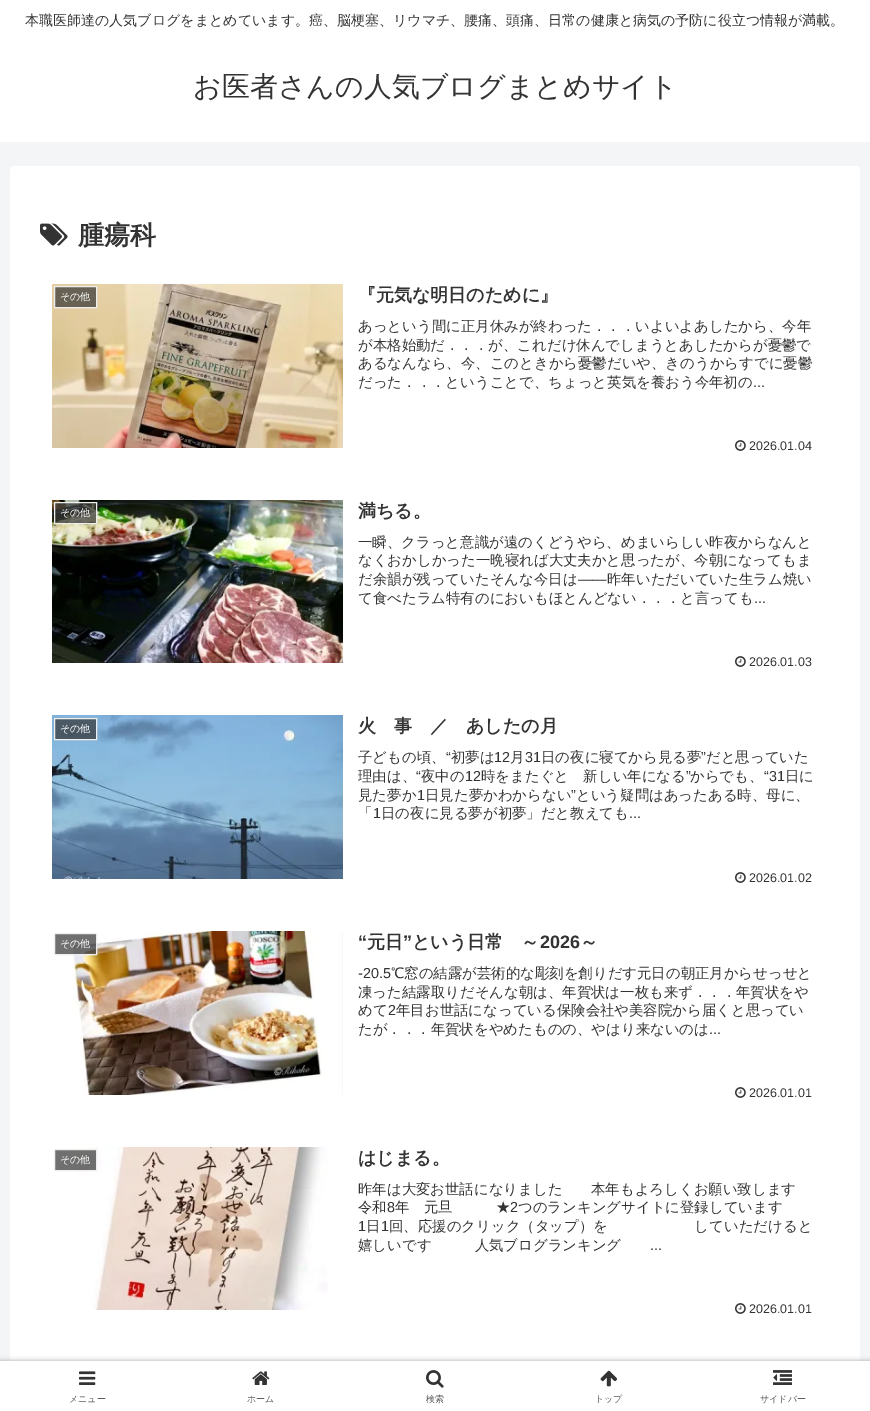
%!PS
<< /PageSize [870 1411] /PageUsesTransparency true >> setpagedevice
/alpha { dup .setfillconstantalpha .setstrokeconstantalpha } def
/roundrect { 5 dict begin { /r /h /w /y /x } { exch def } forall
  x r add y moveto x w add y 2 copy h add r arct x w add y h add x 1 index r arct
  x y h add x y r arct x y 2 copy exch w add exch r arct closepath end } def
/shadow { 12 dict begin { /a /b /q /h /w /y /x } { exch def } forall gsave /was 0 def
  9 -2 -9 { dup b mul 4 div /e exch def 1 sub .425 mul 2.718 exch exp 1 add a .99 .min exch div /now exch def
    1 1 now sub 1 was sub div sub alpha /was now def
    w h .min e 2 mul add 0 gt { x e sub y e sub w e 2 mul add h e 2 mul add
      q e add b .6 mul add w h .min 2 div e add .min 0 .max roundrect fill } if } for grestore end } def
/picture { 5 dict begin { /h /w /y /x /name } { exch def } forall
  gsave x y translate w h scale
  w h 8 [w 0 0 h 0 0] name (r) file false 3 colorimage grestore end } def
0 .pushpdf14devicefilter
0 1411 translate 1 -1 scale
4 setmiterlimit
0.957 0.961 0.969 setrgbcolor
0 0 870 1411 rectfill
1 setgray
0 0 870 142 rectfill
/WenQuanYiZenHei-Medium [14 0 0 -14 0 0] selectfont
0.2 setgray
25 25 moveto (本職医師達の人気ブログをまとめています。癌、脳梗塞、リウマチ、腰痛、頭痛、日常の健康と病気の予防に役立つ情報が満載。) show
/WenQuanYiZenHei-Medium [28 0 0 -28 0 0] selectfont
193 96 moveto (お医者さんの人気ブログまとめサイト) show
1 setgray
10 166 850 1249 4 roundrect fill
(img1.rgb) 40 223 28 23 picture
/WenQuanYiZenHei-Bold [26 0 0 -26 0 0] selectfont
0.2 setgray
78 244 moveto (腫瘍科) show
(img2.rgb) 52 284 291 164 picture
0.7 alpha
newpath 54.5 286.5 moveto 96.5 286.5 lineto 96.5 307.5 lineto 54.5 307.5 lineto closepath fill
1 alpha
0.933 setgray
newpath 54.5 286.5 moveto 96.5 286.5 lineto 96.5 307.5 lineto 54.5 307.5 lineto closepath stroke
/WenQuanYiZenHei-Medium [10 0 0 -10 0 0] selectfont
1 setgray
60 300 moveto (その他) show
/WenQuanYiZenHei-Bold [18 0 0 -18 0 0] selectfont
0.2 setgray
358 301 moveto (『元気な明日のために』) show
/WenQuanYiZenHei-Medium [14.4 0 0 -14.4 0 0] selectfont
358 331 moveto (あっという間に正月休みが終わった．．．いよいよあしたから、今年) show
358 350 moveto (が本格始動だ．．．が、これだけ休んでしまうとあしたからが憂鬱で) show
358 368 moveto (あるなんなら、今、このときから憂鬱だいや、きのうからすでに憂鬱) show
358 387 moveto (だった．．．ということで、ちょっと英気を養おう今年初の) show
/LiberationSans-Regular [14.4 0 0 -14.4 0 0] selectfont
753 387 moveto (...) show
(img3.rgb) 735 440 11 11 picture
/LiberationSans-Regular [12.5 0 0 -12.5 0 0] selectfont
749 450 moveto (2026.01.04) show
(img4.rgb) 52 500 291 163 picture
0.7 alpha
newpath 54.5 502.5 moveto 96.5 502.5 lineto 96.5 523.5 lineto 54.5 523.5 lineto closepath fill
1 alpha
0.933 setgray
newpath 54.5 502.5 moveto 96.5 502.5 lineto 96.5 523.5 lineto 54.5 523.5 lineto closepath stroke
/WenQuanYiZenHei-Medium [10 0 0 -10 0 0] selectfont
1 setgray
60 516 moveto (その他) show
/WenQuanYiZenHei-Bold [18 0 0 -18 0 0] selectfont
0.2 setgray
358 517 moveto (満ちる。) show
/WenQuanYiZenHei-Medium [14.4 0 0 -14.4 0 0] selectfont
358 547 moveto (一瞬、クラっと意識が遠のくどうやら、めまいらしい昨夜からなんと) show
358 565 moveto (なくおかしかった一晩寝れば大丈夫かと思ったが、今朝になってもま) show
358 584 moveto (だ余韻が残っていたそんな今日は) show
/LiberationSans-Regular [14.4 0 0 -14.4 0 0] selectfont
578 584 moveto (――) show
/WenQuanYiZenHei-Medium [14.4 0 0 -14.4 0 0] selectfont
607 584 moveto (昨年いただいていた生ラム焼い) show
358 603 moveto (て食べたラム特有のにおいもほとんどない．．．と言っても) show
/LiberationSans-Regular [14.4 0 0 -14.4 0 0] selectfont
754 603 moveto (...) show
(img3.rgb) 735 656 11 11 picture
/LiberationSans-Regular [12.5 0 0 -12.5 0 0] selectfont
749 666 moveto (2026.01.03) show
(img5.rgb) 52 715 291 164 picture
0.7 alpha
newpath 54.5 718.5 moveto 96.5 718.5 lineto 96.5 739.5 lineto 54.5 739.5 lineto closepath fill
1 alpha
0.933 setgray
newpath 54.5 718.5 moveto 96.5 718.5 lineto 96.5 739.5 lineto 54.5 739.5 lineto closepath stroke
/WenQuanYiZenHei-Medium [10 0 0 -10 0 0] selectfont
1 setgray
60 732 moveto (その他) show
/WenQuanYiZenHei-Bold [18 0 0 -18 0 0] selectfont
0.2 setgray
358 732 moveto (火　事　／　あしたの月) show
/WenQuanYiZenHei-Medium [14.4 0 0 -14.4 0 0] selectfont
358 762 moveto (子どもの頃、) show
/LiberationSans-Regular [14.4 0 0 -14.4 0 0] selectfont
446 762 moveto (“) show
/WenQuanYiZenHei-Medium [14.4 0 0 -14.4 0 0] selectfont
451 762 moveto (初夢は) show
/LiberationSans-Regular [14.4 0 0 -14.4 0 0] selectfont
494 762 moveto (12) show
/WenQuanYiZenHei-Medium [14.4 0 0 -14.4 0 0] selectfont
510 762 moveto (月) show
/LiberationSans-Regular [14.4 0 0 -14.4 0 0] selectfont
525 762 moveto (31) show
/WenQuanYiZenHei-Medium [14.4 0 0 -14.4 0 0] selectfont
541 762 moveto (日の夜に寝てから見る夢) show
/LiberationSans-Regular [14.4 0 0 -14.4 0 0] selectfont
701 762 moveto (”) show
/WenQuanYiZenHei-Medium [14.4 0 0 -14.4 0 0] selectfont
706 762 moveto (だと思っていた) show
358 781 moveto (理由は、) show
/LiberationSans-Regular [14.4 0 0 -14.4 0 0] selectfont
416 781 moveto (“) show
/WenQuanYiZenHei-Medium [14.4 0 0 -14.4 0 0] selectfont
421 781 moveto (夜中の) show
/LiberationSans-Regular [14.4 0 0 -14.4 0 0] selectfont
465 781 moveto (12) show
/WenQuanYiZenHei-Medium [14.4 0 0 -14.4 0 0] selectfont
481 781 moveto (時をまたぐと　新しい年になる) show
/LiberationSans-Regular [14.4 0 0 -14.4 0 0] selectfont
686 781 moveto (”) show
/WenQuanYiZenHei-Medium [14.4 0 0 -14.4 0 0] selectfont
690 781 moveto (からでも、) show
/LiberationSans-Regular [14.4 0 0 -14.4 0 0] selectfont
764 781 moveto (“31) show
/WenQuanYiZenHei-Medium [14.4 0 0 -14.4 0 0] selectfont
785 781 moveto (日に) show
358 800 moveto (見た夢か) show
/LiberationSans-Regular [14.4 0 0 -14.4 0 0] selectfont
417 800 moveto (1) show
/WenQuanYiZenHei-Medium [14.4 0 0 -14.4 0 0] selectfont
425 800 moveto (日見た夢かわからない) show
/LiberationSans-Regular [14.4 0 0 -14.4 0 0] selectfont
571 800 moveto (”) show
/WenQuanYiZenHei-Medium [14.4 0 0 -14.4 0 0] selectfont
576 800 moveto (という疑問はあったある時、母に、) show
358 818 moveto (「) show
/LiberationSans-Regular [14.4 0 0 -14.4 0 0] selectfont
373 818 moveto (1) show
/WenQuanYiZenHei-Medium [14.4 0 0 -14.4 0 0] selectfont
381 818 moveto (日の夜に見る夢が初夢」だと教えても) show
/LiberationSans-Regular [14.4 0 0 -14.4 0 0] selectfont
629 818 moveto (...) show
(img3.rgb) 735 872 11 11 picture
/LiberationSans-Regular [12.5 0 0 -12.5 0 0] selectfont
749 882 moveto (2026.01.02) show
(img6.rgb) 72 931 271 164 picture
0.7 alpha
newpath 54.5 933.5 moveto 96.5 933.5 lineto 96.5 954.5 lineto 54.5 954.5 lineto closepath fill
1 alpha
0.933 setgray
newpath 54.5 933.5 moveto 96.5 933.5 lineto 96.5 954.5 lineto 54.5 954.5 lineto closepath stroke
/WenQuanYiZenHei-Medium [10 0 0 -10 0 0] selectfont
1 setgray
60 947 moveto (その他) show
/LiberationSans-Bold [18 0 0 -18 0 0] selectfont
0.2 setgray
358 948 moveto (“) show
/WenQuanYiZenHei-Bold [18 0 0 -18 0 0] selectfont
367 948 moveto (元日) show
/LiberationSans-Bold [18 0 0 -18 0 0] selectfont
403 948 moveto (”) show
/WenQuanYiZenHei-Bold [18 0 0 -18 0 0] selectfont
412 948 moveto (という日常　～) show
/LiberationSans-Bold [18 0 0 -18 0 0] selectfont
540 948 moveto (2026) show
/WenQuanYiZenHei-Bold [18 0 0 -18 0 0] selectfont
580 948 moveto (～) show
/LiberationSans-Regular [14.4 0 0 -14.4 0 0] selectfont
358 978 moveto (-20.5) show
/WenQuanYiZenHei-Medium [14.4 0 0 -14.4 0 0] selectfont
391 978 moveto (℃窓の結露が芸術的な彫刻を創りだす元日の朝正月からせっせと) show
358 997 moveto (凍った結露取りだそんな朝は、年賀状は一枚も来ず．．．年賀状をや) show
358 1015 moveto (めて) show
/LiberationSans-Regular [14.4 0 0 -14.4 0 0] selectfont
388 1015 moveto (2) show
/WenQuanYiZenHei-Medium [14.4 0 0 -14.4 0 0] selectfont
396 1015 moveto (年目お世話になっている保険会社や美容院から届くと思ってい) show
358 1034 moveto (たが．．．年賀状をやめたものの、やはり来ないのは) show
/LiberationSans-Regular [14.4 0 0 -14.4 0 0] selectfont
709 1034 moveto (...) show
(img3.rgb) 735 1087 11 11 picture
/LiberationSans-Regular [12.5 0 0 -12.5 0 0] selectfont
749 1097 moveto (2026.01.01) show
(img7.rgb) 74 1147 254 163 picture
0.7 alpha
newpath 54.5 1149.5 moveto 96.5 1149.5 lineto 96.5 1170.5 lineto 54.5 1170.5 lineto closepath fill
1 alpha
0.933 setgray
newpath 54.5 1149.5 moveto 96.5 1149.5 lineto 96.5 1170.5 lineto 54.5 1170.5 lineto closepath stroke
/WenQuanYiZenHei-Medium [10 0 0 -10 0 0] selectfont
1 setgray
60 1163 moveto (その他) show
/WenQuanYiZenHei-Bold [18 0 0 -18 0 0] selectfont
0.2 setgray
358 1164 moveto (はじまる。) show
/WenQuanYiZenHei-Medium [14.4 0 0 -14.4 0 0] selectfont
358 1194 moveto (昨年は大変お世話になりました　　本年もよろしくお願い致します) show
358 1212 moveto (令和) show
/LiberationSans-Regular [14.4 0 0 -14.4 0 0] selectfont
387 1212 moveto (8) show
/WenQuanYiZenHei-Medium [14.4 0 0 -14.4 0 0] selectfont
395 1212 moveto (年　元旦　　　★) show
/LiberationSans-Regular [14.4 0 0 -14.4 0 0] selectfont
510 1212 moveto (2) show
/WenQuanYiZenHei-Medium [14.4 0 0 -14.4 0 0] selectfont
518 1212 moveto (つのランキングサイトに登録しています) show
/LiberationSans-Regular [14.4 0 0 -14.4 0 0] selectfont
358 1231 moveto (1) show
/WenQuanYiZenHei-Medium [14.4 0 0 -14.4 0 0] selectfont
366 1231 moveto (日) show
/LiberationSans-Regular [14.4 0 0 -14.4 0 0] selectfont
381 1231 moveto (1) show
/WenQuanYiZenHei-Medium [14.4 0 0 -14.4 0 0] selectfont
389 1231 moveto (回、応援のクリック（タップ）を　　　　　　していただけると) show
358 1250 moveto (嬉しいです　　　人気ブログランキング) show
/LiberationSans-Regular [14.4 0 0 -14.4 0 0] selectfont
650 1250 moveto (...) show
(img3.rgb) 735 1303 11 11 picture
/LiberationSans-Regular [12.5 0 0 -12.5 0 0] selectfont
749 1313 moveto (2026.01.01) show
0.663 setgray
0 1361 870 50 0 2.5 1 shadow
1 setgray
0 1361 870 50 rectfill
(img8.rgb) 79 1371 17 14 picture
/WenQuanYiZenHei-Medium [9 0 0 -9 0 0] selectfont
0.361 setgray
69 1402 moveto (メニュー) show
(img9.rgb) 252 1371 18 14 picture
247 1402 moveto (ホーム) show
(img10.rgb) 426 1370 18 18 picture
426 1402 moveto (検索) show
(img11.rgb) 600 1370 17 17 picture
595 1402 moveto (トップ) show
(img12.rgb) 773 1370 19 15 picture
760 1402 moveto (サイドバー) show
.poppdf14devicefilter showpage
